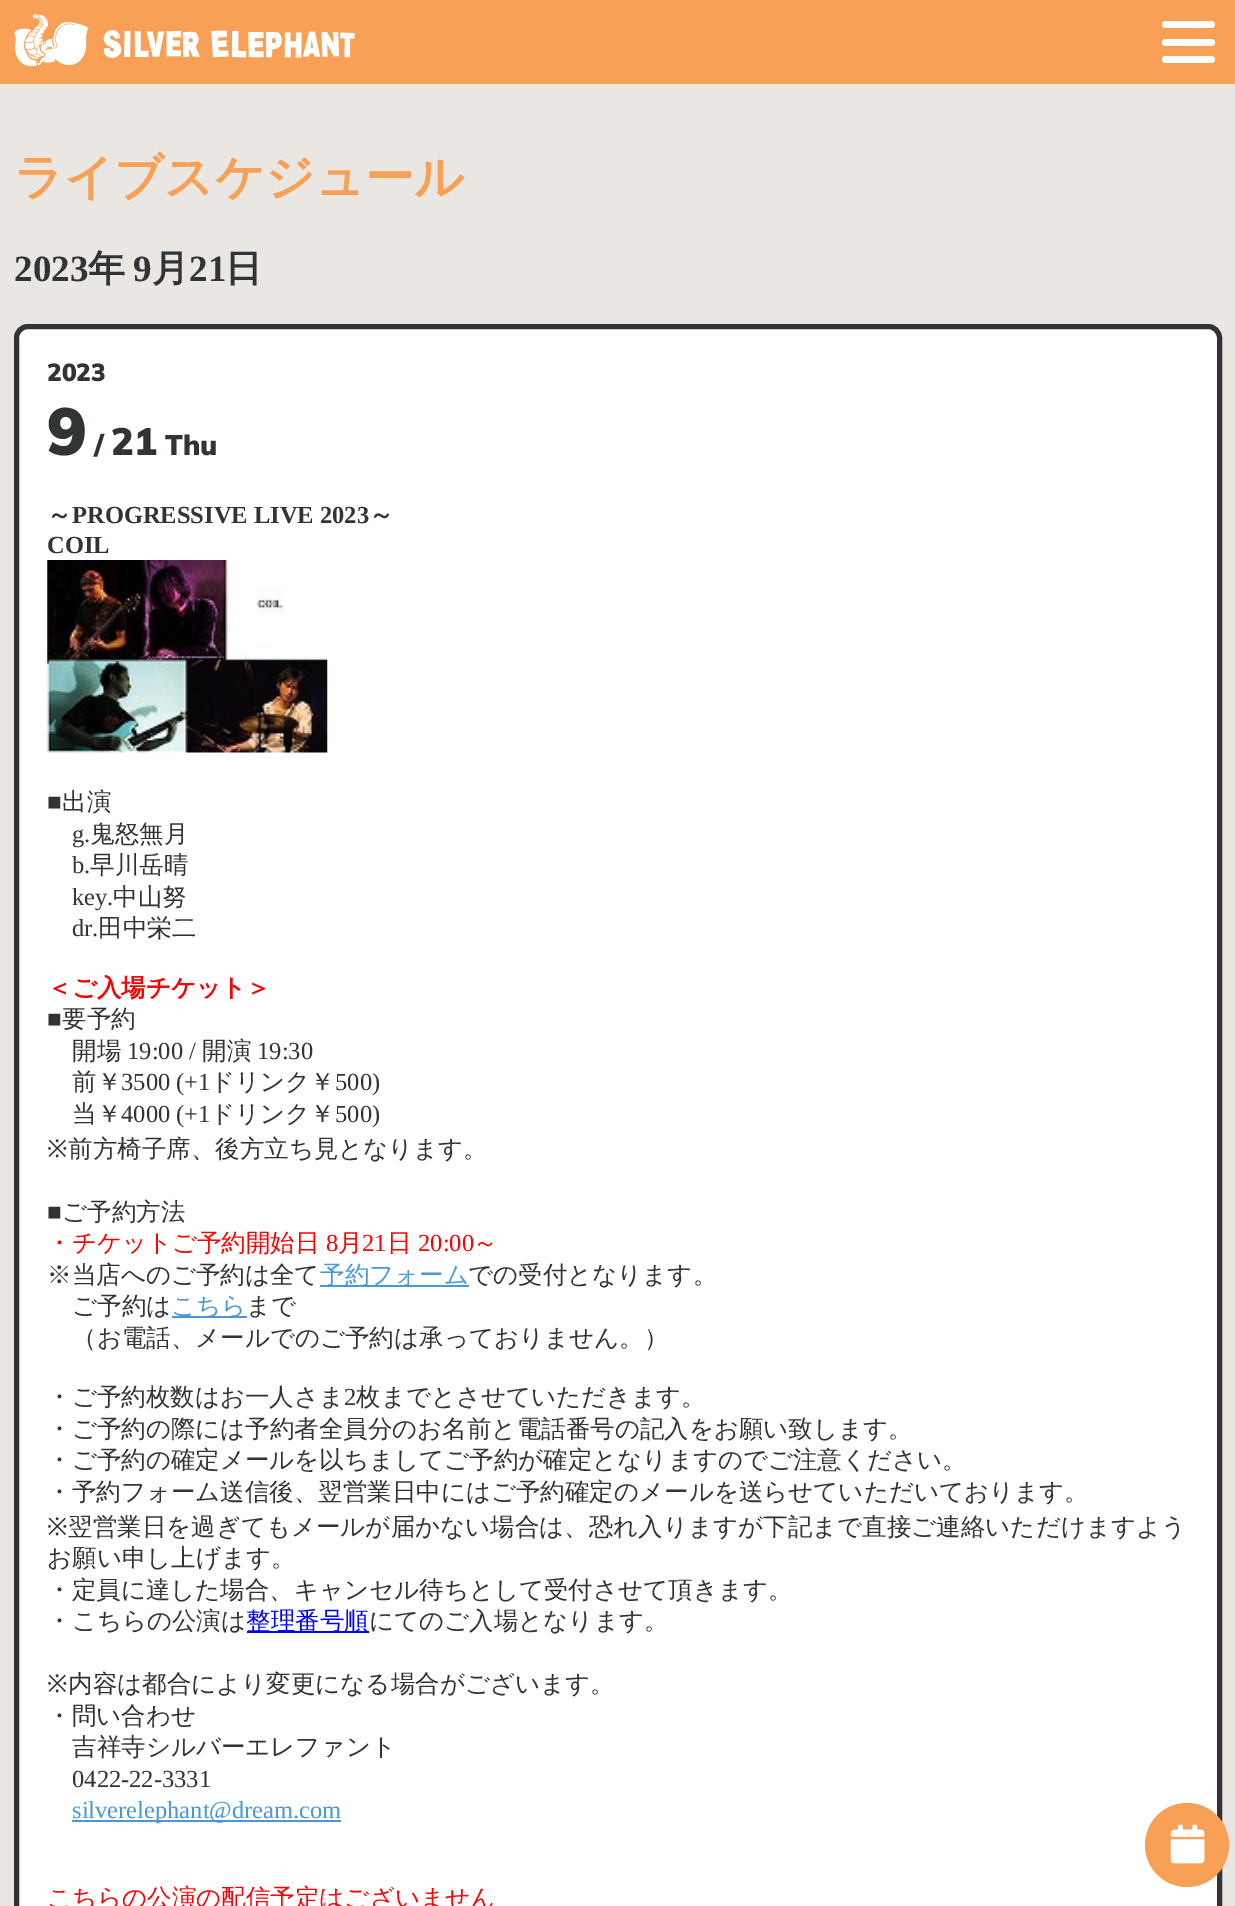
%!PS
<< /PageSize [1235 1906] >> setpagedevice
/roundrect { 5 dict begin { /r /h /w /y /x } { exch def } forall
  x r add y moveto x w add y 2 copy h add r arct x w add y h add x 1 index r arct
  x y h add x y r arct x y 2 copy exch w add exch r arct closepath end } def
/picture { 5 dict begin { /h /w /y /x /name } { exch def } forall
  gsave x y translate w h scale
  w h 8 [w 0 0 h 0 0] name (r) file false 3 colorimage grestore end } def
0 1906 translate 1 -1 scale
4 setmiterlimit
0.918 0.902 0.886 setrgbcolor
0 0 1235 1906 rectfill
0.973 0.627 0.333 setrgbcolor
0 0 1235 84 rectfill
(img1.rgb) 14 14 341 53 picture
1 setgray
1162 21 53 7 3.5 roundrect fill
1162 39 53 7 3.5 roundrect fill
1162 56 53 7 3.5 roundrect fill
/WenQuanYiZenHei-Bold [49 0 0 -49 0 0] selectfont
0.973 0.627 0.333 setrgbcolor
14 194 moveto (ライブスケジュール) show
/LiberationSerif-Bold [37 0 0 -37 0 0] selectfont
0.188 0.204 0.208 setrgbcolor
14 281 moveto (2023) show
/WenQuanYiZenHei-Bold [37 0 0 -37 0 0] selectfont
88 281 moveto (年) show
/LiberationSerif-Bold [37 0 0 -37 0 0] selectfont
133 281 moveto (9) show
/WenQuanYiZenHei-Bold [37 0 0 -37 0 0] selectfont
152 281 moveto (月) show
/LiberationSerif-Bold [37 0 0 -37 0 0] selectfont
189 281 moveto (21) show
/WenQuanYiZenHei-Bold [37 0 0 -37 0 0] selectfont
225 281 moveto (日) show
1 setgray
16.5 326.5 1203 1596 11.5 roundrect gsave fill grestore
0.188 0.204 0.208 setrgbcolor
5 setlinewidth
stroke
/Muli-Black [24.5 0 0 -24.5 0 0] selectfont
47 381 moveto (2023) show
/Muli-Black [66 0 0 -66 0 0] selectfont
47 455 moveto (9) show
/Muli-Black [28 0 0 -28 0 0] selectfont
94 455 moveto (/) show
/Muli-Black [38 0 0 -38 0 0] selectfont
111 455 moveto (21) show
/Muli-Black [28 0 0 -28 0 0] selectfont
165 455 moveto (Thu) show
/WenQuanYiZenHei-Bold [24.5 0 0 -24.5 0 0] selectfont
47 523 moveto (～) show
/LiberationSerif-Bold [24.5 0 0 -24.5 0 0] selectfont
72 523 moveto (PROGRESSIVE LIVE 2023) show
/WenQuanYiZenHei-Bold [24.5 0 0 -24.5 0 0] selectfont
369 523 moveto (～) show
/LiberationSerif-Bold [24.5 0 0 -24.5 0 0] selectfont
47 553 moveto (COIL) show
(img2.rgb) 47 560 281 193 picture
/LiberationSerif-Regular [24.5 0 0 -24.5 0 0] selectfont
47 810 moveto (■) show
/WenQuanYiZenHei-Medium [24.5 0 0 -24.5 0 0] selectfont
62 810 moveto (出演) show
/LiberationSerif-Regular [24.5 0 0 -24.5 0 0] selectfont
72 842 moveto (g.) show
/WenQuanYiZenHei-Medium [24.5 0 0 -24.5 0 0] selectfont
90 842 moveto (鬼怒無月) show
/LiberationSerif-Regular [24.5 0 0 -24.5 0 0] selectfont
72 873 moveto (b.) show
/WenQuanYiZenHei-Medium [24.5 0 0 -24.5 0 0] selectfont
90 873 moveto (早川岳晴) show
/LiberationSerif-Regular [24.5 0 0 -24.5 0 0] selectfont
72 905 moveto (key.) show
/WenQuanYiZenHei-Medium [24.5 0 0 -24.5 0 0] selectfont
113 905 moveto (中山努) show
/LiberationSerif-Regular [24.5 0 0 -24.5 0 0] selectfont
72 936 moveto (dr.) show
/WenQuanYiZenHei-Medium [24.5 0 0 -24.5 0 0] selectfont
98 936 moveto (田中栄二) show
/WenQuanYiZenHei-Bold [24.5 0 0 -24.5 0 0] selectfont
1 0 0 setrgbcolor
47 996 moveto (＜ご入場チケット＞) show
/LiberationSerif-Regular [24.5 0 0 -24.5 0 0] selectfont
0.188 0.204 0.208 setrgbcolor
47 1027 moveto (■) show
/WenQuanYiZenHei-Medium [24.5 0 0 -24.5 0 0] selectfont
62 1027 moveto (要予約) show
72 1059 moveto (開場) show
/LiberationSerif-Regular [24.5 0 0 -24.5 0 0] selectfont
127 1059 moveto (19:00 /) show
/WenQuanYiZenHei-Medium [24.5 0 0 -24.5 0 0] selectfont
202 1059 moveto (開演) show
/LiberationSerif-Regular [24.5 0 0 -24.5 0 0] selectfont
257 1059 moveto (19:30) show
/WenQuanYiZenHei-Medium [24.5 0 0 -24.5 0 0] selectfont
72 1090 moveto (前￥) show
/LiberationSerif-Regular [24.5 0 0 -24.5 0 0] selectfont
121 1090 moveto (3500 \(+1) show
/WenQuanYiZenHei-Medium [24.5 0 0 -24.5 0 0] selectfont
210 1090 moveto (ドリンク￥) show
/LiberationSerif-Regular [24.5 0 0 -24.5 0 0] selectfont
335 1090 moveto (500\)) show
/WenQuanYiZenHei-Medium [24.5 0 0 -24.5 0 0] selectfont
72 1122 moveto (当￥) show
/LiberationSerif-Regular [24.5 0 0 -24.5 0 0] selectfont
121 1122 moveto (4000 \(+1) show
/WenQuanYiZenHei-Medium [24.5 0 0 -24.5 0 0] selectfont
210 1122 moveto (ドリンク￥) show
/LiberationSerif-Regular [24.5 0 0 -24.5 0 0] selectfont
335 1122 moveto (500\)) show
/NotoSans-Regular [24.5 0 0 -24.5 0 0] selectfont
47 1157 moveto (※) show
/WenQuanYiZenHei-Medium [24.5 0 0 -24.5 0 0] selectfont
68 1157 moveto (前方椅子席、後方立ち見となります。) show
/LiberationSerif-Regular [24.5 0 0 -24.5 0 0] selectfont
47 1220 moveto (■) show
/WenQuanYiZenHei-Medium [24.5 0 0 -24.5 0 0] selectfont
62 1220 moveto (ご予約方法) show
1 0 0 setrgbcolor
47 1251 moveto (・チケットご予約開始日) show
/LiberationSerif-Regular [24.5 0 0 -24.5 0 0] selectfont
326 1251 moveto (8) show
/WenQuanYiZenHei-Medium [24.5 0 0 -24.5 0 0] selectfont
338 1251 moveto (月) show
/LiberationSerif-Regular [24.5 0 0 -24.5 0 0] selectfont
362 1251 moveto (21) show
/WenQuanYiZenHei-Medium [24.5 0 0 -24.5 0 0] selectfont
387 1251 moveto (日) show
/LiberationSerif-Regular [24.5 0 0 -24.5 0 0] selectfont
418 1251 moveto (20:00) show
/WenQuanYiZenHei-Medium [24.5 0 0 -24.5 0 0] selectfont
473 1251 moveto (～) show
0.188 0.204 0.208 setrgbcolor
47 1283 moveto (※当店へのご予約は全て) show
0.282 0.592 0.847 setrgbcolor
320 1285 149 2 rectfill
320 1283 moveto (予約フォーム) show
0.188 0.204 0.208 setrgbcolor
468 1283 moveto (での受付となります。) show
72 1314 moveto (ご予約は) show
0.282 0.592 0.847 setrgbcolor
172 1316 75 2 rectfill
171 1314 moveto (こちら) show
0.188 0.204 0.208 setrgbcolor
246 1314 moveto (まで) show
72 1346 moveto (（お電話、メールでのご予約は承っておりません。）) show
47 1405 moveto (・ご予約枚数はお一人さま) show
/LiberationSerif-Regular [24.5 0 0 -24.5 0 0] selectfont
344 1405 moveto (2) show
/WenQuanYiZenHei-Medium [24.5 0 0 -24.5 0 0] selectfont
356 1405 moveto (枚までとさせていただきます。) show
47 1437 moveto (・ご予約の際には予約者全員分のお名前と電話番号の記入をお願い致します。) show
47 1468 moveto (・ご予約の確定メールを以ちましてご予約が確定となりますのでご注意ください。) show
47 1500 moveto (・予約フォーム送信後、翌営業日中にはご予約確定のメールを送らせていただいております。) show
/NotoSans-Regular [24.5 0 0 -24.5 0 0] selectfont
47 1535 moveto (※) show
/WenQuanYiZenHei-Medium [24.5 0 0 -24.5 0 0] selectfont
68 1535 moveto (翌営業日を過ぎてもメールが届かない場合は、恐れ入りますが下記まで直接ご連絡いただけますよう) show
47 1566 moveto (お願い申し上げます。) show
47 1598 moveto (・定員に達した場合、キャンセル待ちとして受付させて頂きます。) show
47 1629 moveto (・こちらの公演は) show
0 0 1 setrgbcolor
247 1631 122 2 rectfill
246 1629 moveto (整理番号順) show
0.188 0.204 0.208 setrgbcolor
369 1629 moveto (にてのご入場となります。) show
/NotoSans-Regular [24.5 0 0 -24.5 0 0] selectfont
47 1692 moveto (※) show
/WenQuanYiZenHei-Medium [24.5 0 0 -24.5 0 0] selectfont
68 1692 moveto (内容は都合により変更になる場合がございます。) show
47 1724 moveto (・問い合わせ) show
72 1755 moveto (吉祥寺シルバーエレファント) show
/LiberationSerif-Regular [24.5 0 0 -24.5 0 0] selectfont
72 1787 moveto (0422-22-3331) show
0.282 0.592 0.847 setrgbcolor
72 1820 269 2 rectfill
72 1818 moveto (silverelephant@dream.com) show
/WenQuanYiZenHei-Medium [24.5 0 0 -24.5 0 0] selectfont
1 0 0 setrgbcolor
47 1906 moveto (こちらの公演の配信予定はございません) show
0.973 0.627 0.333 setrgbcolor
newpath 1187 1845 42 0 360 arc closepath fill
(img3.rgb) 1170 1824 35 40 picture
showpage
